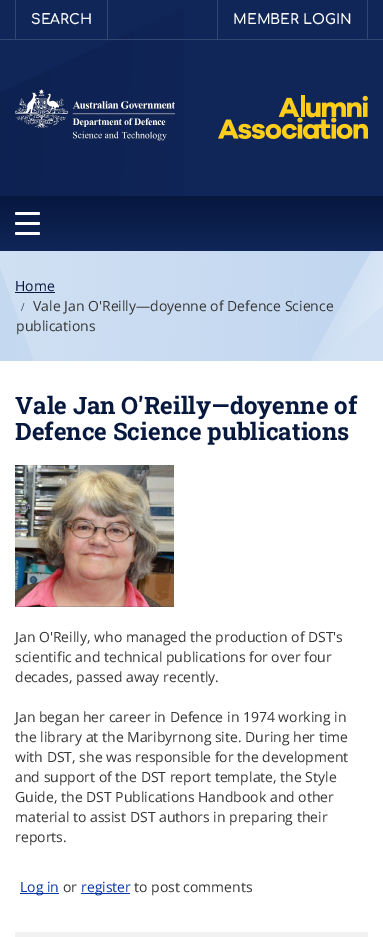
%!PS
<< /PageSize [383 937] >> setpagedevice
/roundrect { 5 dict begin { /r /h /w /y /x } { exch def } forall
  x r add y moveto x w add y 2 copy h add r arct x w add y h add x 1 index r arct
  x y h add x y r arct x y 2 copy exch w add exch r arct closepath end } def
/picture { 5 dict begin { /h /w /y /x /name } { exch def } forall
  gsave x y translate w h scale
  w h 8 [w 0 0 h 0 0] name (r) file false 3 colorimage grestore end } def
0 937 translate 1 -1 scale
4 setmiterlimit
1 setgray
0 0 383 937 rectfill
0.063 0.149 0.349 setrgbcolor
0 0 383 196 rectfill
(img1.rgb) 0 8 184 188 picture
0.204 0.275 0.447 setrgbcolor
0 39 383 1 rectfill
367 0 1 40 rectfill
15 0 1 40 rectfill
107 0 1 40 rectfill
/Comfortaa-Bold [14 0 0 -14 0 0] selectfont
1 setgray
31 24 moveto (SEARCH) show
0.204 0.275 0.447 setrgbcolor
217 0 1 40 rectfill
1 setgray
233 24 moveto (MEMBER LOGIN) show
(img2.rgb) 15 89 160 52 picture
(img3.rgb) 218 95 150 44 picture
gsave newpath 0 196 moveto 383 196 lineto 383 251 lineto 0 251 lineto closepath clip newpath
<< /ShadingType 2 /ColorSpace /DeviceRGB /Coords [192 196 192 251] /Extend [true true] /Function << /FunctionType 2 /Domain [0 1] /C0 [0.027 0.094 0.243] /C1 [0.063 0.149 0.349] /N 1 >> >> shfill grestore
15 212 25 3 1.5 roundrect fill
15 222 25 3 1.5 roundrect fill
15 232 25 3 1.5 roundrect fill
(img4.rgb) 0 251 383 110 picture
/OpenSans-Regular [14 0 0 -14 0 0] selectfont
0.027 0.094 0.243 setrgbcolor
15 291 moveto (Home) show
15 292 40 1 rectfill
/LiberationSerif-Regular [12 0 0 -12 0 0] selectfont
21 311 moveto (/) show
/OpenSans-Regular [14 0 0 -14 0 0] selectfont
0.212 setgray
33 311 moveto (Vale Jan O'Reilly—doyenne of Defence Science) show
16 331 moveto (publications) show
/RobotoSlab-Bold [24 0 0 -24 0 0] selectfont
0.027 0.094 0.243 setrgbcolor
15 414 moveto (Vale Jan O'Reilly—doyenne of) show
15 440 moveto (Defence Science publications) show
(img5.rgb) 15 465 159 142 picture
/OpenSans-Regular [14 0 0 -14 0 0] selectfont
0.212 setgray
15 642 moveto (Jan O'Reilly, who managed the production of DST's) show
15 662 moveto (scientific and technical publications for over four) show
15 682 moveto (decades, passed away recently.) show
15 722 moveto (Jan began her career in Defence in 1974 working in) show
15 742 moveto (the library at the Maribyrnong site. During her time) show
15 762 moveto (with DST, she was responsible for the development) show
15 782 moveto (and support of the DST report template, the Style) show
15 802 moveto (Guide, the DST Publications Handbook and other) show
15 822 moveto (material to assist DST authors in preparing their) show
15 842 moveto (reports.) show
0.031 0.216 0.647 setrgbcolor
20 893 39 1 rectfill
20 892 moveto (Log in) show
0.212 setgray
63 892 moveto (or) show
0.031 0.216 0.647 setrgbcolor
81 893 49 1 rectfill
81 892 moveto (register) show
0.212 setgray
134 892 moveto (to post comments) show
0.945 setgray
15 932 353 5 rectfill
showpage
